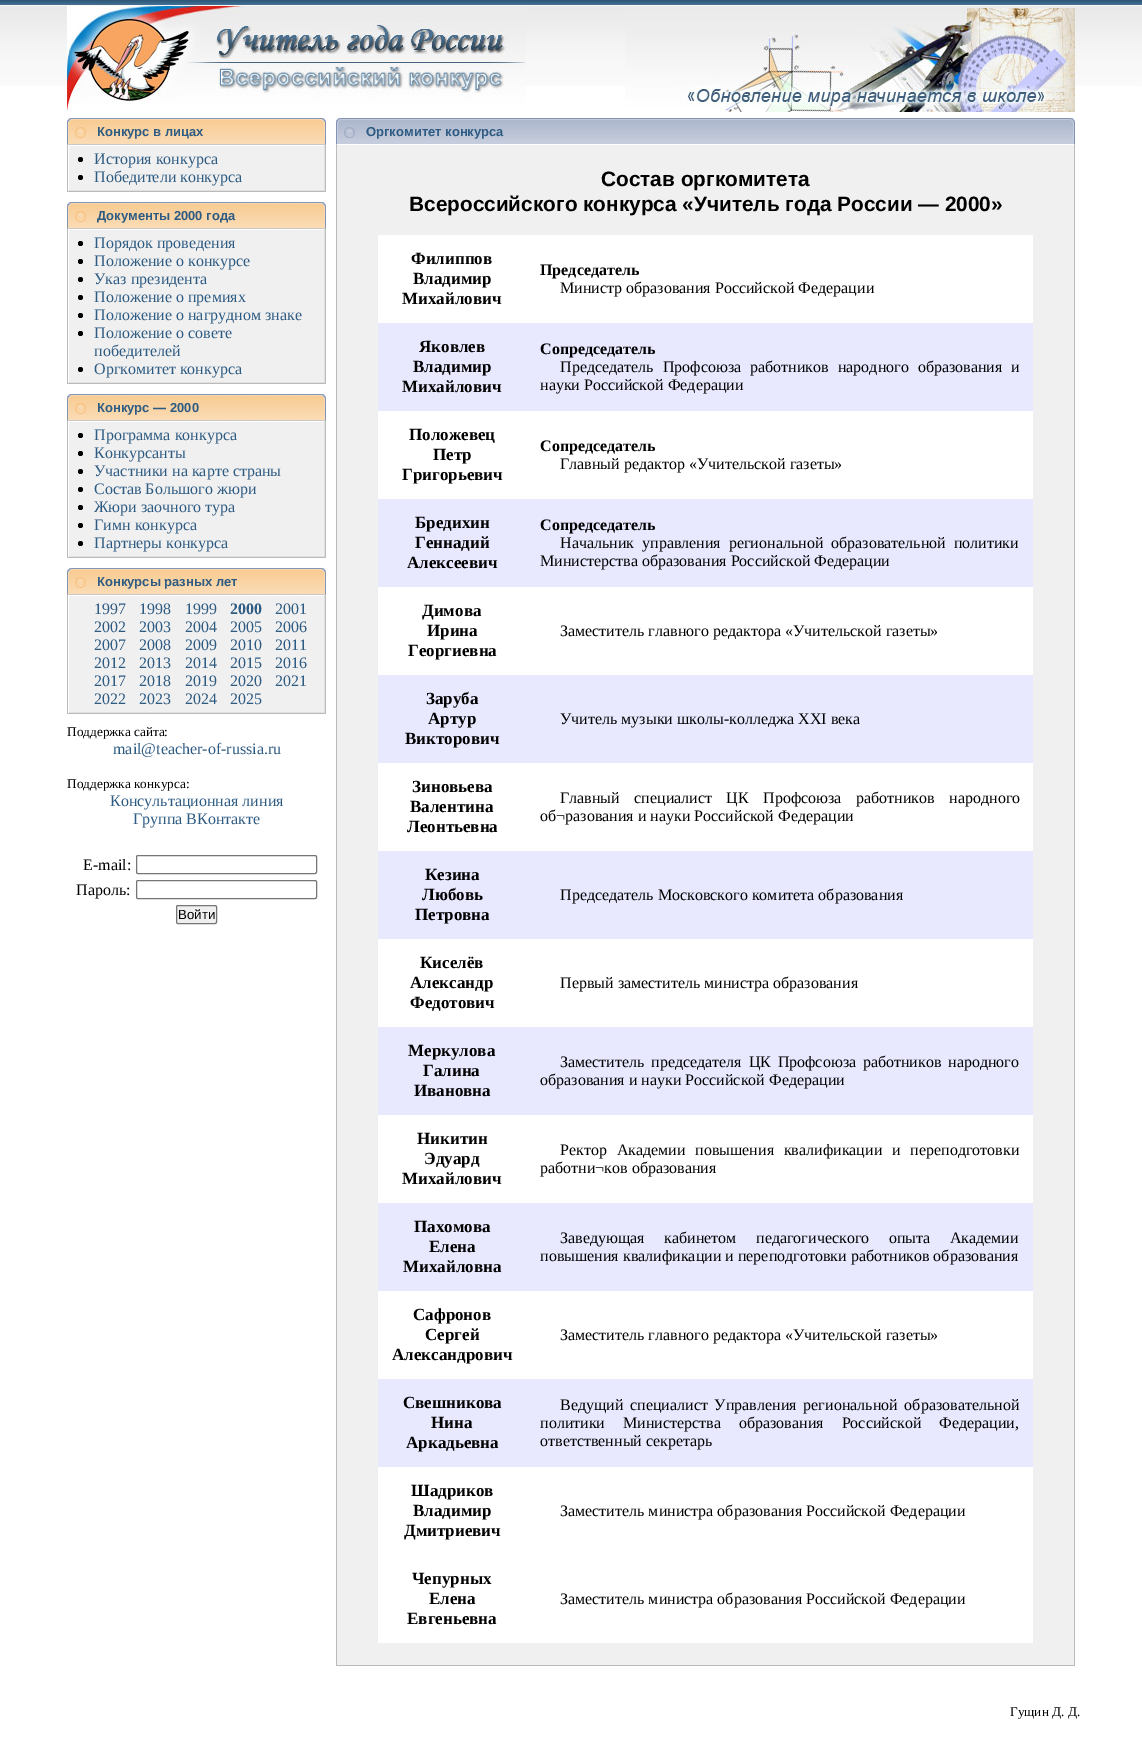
%!PS
<< /PageSize [1142 1742] >> setpagedevice
/roundrect { 5 dict begin { /r /h /w /y /x } { exch def } forall
  x r add y moveto x w add y 2 copy h add r arct x w add y h add x 1 index r arct
  x y h add x y r arct x y 2 copy exch w add exch r arct closepath end } def
/picture { 5 dict begin { /h /w /y /x /name } { exch def } forall
  gsave x y translate w h scale
  w h 8 [w 0 0 h 0 0] name (r) file false 3 colorimage grestore end } def
0 1742 translate 1 -1 scale
4 setmiterlimit
1 setgray
0 0 1142 1742 rectfill
(img1.rgb) 0 0 1142 86 picture
(img2.rgb) 67 6 459 104 picture
(img3.rgb) 625 8 450 104 picture
(img4.rgb) 68 118 257 26 picture
(img5.rgb) 67 118 19 26 picture
(img6.rgb) 321 118 5 26 picture
/LiberationSans-Bold [13 0 0 -13 0 0] selectfont
0.18 0.357 0.51 setrgbcolor
97 136 moveto (Конкурс в лицах) show
0.784 setgray
67 144 259 1 rectfill
0.733 setgray
325 144 1 48 rectfill
67 191 259 1 rectfill
67 144 1 48 rectfill
0.941 setgray
69 146 255 44 rectfill
0.878 setgray
324 145 1 46 rectfill
68 190 257 1 rectfill
1 setgray
68 190 1 1 rectfill
0 setgray
newpath 80.5 159.5 2.5 0 360 arc closepath fill
/LiberationSerif-Regular [16 0 0 -16 0 0] selectfont
0.18 0.357 0.51 setrgbcolor
94 164 moveto (История конкурса) show
0 setgray
newpath 80.5 177.5 2.5 0 360 arc closepath fill
0.18 0.357 0.51 setrgbcolor
94 182 moveto (Победители конкурса) show
(img4.rgb) 68 202 257 26 picture
(img5.rgb) 67 202 19 26 picture
(img6.rgb) 321 202 5 26 picture
/LiberationSans-Bold [13 0 0 -13 0 0] selectfont
97 220 moveto (Документы 2000 года) show
0.784 setgray
67 228 259 1 rectfill
0.733 setgray
325 228 1 156 rectfill
67 383 259 1 rectfill
67 228 1 156 rectfill
0.941 setgray
69 230 255 152 rectfill
0.878 setgray
324 229 1 154 rectfill
68 382 257 1 rectfill
1 setgray
68 382 1 1 rectfill
0 setgray
newpath 80.5 243.5 2.5 0 360 arc closepath fill
/LiberationSerif-Regular [16 0 0 -16 0 0] selectfont
0.18 0.357 0.51 setrgbcolor
94 248 moveto (Порядок проведения) show
0 setgray
newpath 80.5 261.5 2.5 0 360 arc closepath fill
0.18 0.357 0.51 setrgbcolor
94 266 moveto (Положение о конкурсе) show
0 setgray
newpath 80.5 279.5 2.5 0 360 arc closepath fill
0.18 0.357 0.51 setrgbcolor
94 284 moveto (Указ президента) show
0 setgray
newpath 80.5 297.5 2.5 0 360 arc closepath fill
0.18 0.357 0.51 setrgbcolor
94 302 moveto (Положение о премиях) show
0 setgray
newpath 80.5 315.5 2.5 0 360 arc closepath fill
0.18 0.357 0.51 setrgbcolor
94 320 moveto (Положение о нагрудном знаке) show
0 setgray
newpath 80.5 333.5 2.5 0 360 arc closepath fill
0.18 0.357 0.51 setrgbcolor
94 338 moveto (Положение о совете) show
94 356 moveto (победителей) show
0 setgray
newpath 80.5 369.5 2.5 0 360 arc closepath fill
0.18 0.357 0.51 setrgbcolor
94 374 moveto (Оргкомитет конкурса) show
(img4.rgb) 68 394 257 26 picture
(img5.rgb) 67 394 19 26 picture
(img6.rgb) 321 394 5 26 picture
/LiberationSans-Bold [13 0 0 -13 0 0] selectfont
97 412 moveto (Конкурс — 2000) show
0.784 setgray
67 420 259 1 rectfill
0.733 setgray
325 420 1 138 rectfill
67 557 259 1 rectfill
67 420 1 138 rectfill
0.941 setgray
69 422 255 134 rectfill
0.878 setgray
324 421 1 136 rectfill
68 556 257 1 rectfill
1 setgray
68 556 1 1 rectfill
0 setgray
newpath 80.5 435.5 2.5 0 360 arc closepath fill
/LiberationSerif-Regular [16 0 0 -16 0 0] selectfont
0.18 0.357 0.51 setrgbcolor
94 440 moveto (Программа конкурса) show
0 setgray
newpath 80.5 453.5 2.5 0 360 arc closepath fill
0.18 0.357 0.51 setrgbcolor
94 458 moveto (Конкурсанты) show
0 setgray
newpath 80.5 471.5 2.5 0 360 arc closepath fill
0.18 0.357 0.51 setrgbcolor
94 476 moveto (Участники на карте страны) show
0 setgray
newpath 80.5 489.5 2.5 0 360 arc closepath fill
0.18 0.357 0.51 setrgbcolor
94 494 moveto (Состав Большого жюри) show
0 setgray
newpath 80.5 507.5 2.5 0 360 arc closepath fill
0.18 0.357 0.51 setrgbcolor
94 512 moveto (Жюри заочного тура) show
0 setgray
newpath 80.5 525.5 2.5 0 360 arc closepath fill
0.18 0.357 0.51 setrgbcolor
94 530 moveto (Гимн конкурса) show
0 setgray
newpath 80.5 543.5 2.5 0 360 arc closepath fill
0.18 0.357 0.51 setrgbcolor
94 548 moveto (Партнеры конкурса) show
(img4.rgb) 68 568 257 26 picture
(img5.rgb) 67 568 19 26 picture
(img6.rgb) 321 568 5 26 picture
/LiberationSans-Bold [13 0 0 -13 0 0] selectfont
97 586 moveto (Конкурсы разных лет) show
0.784 setgray
67 594 259 1 rectfill
0.733 setgray
325 594 1 120 rectfill
67 713 259 1 rectfill
67 594 1 120 rectfill
0.941 setgray
69 596 255 116 rectfill
0.878 setgray
324 595 1 118 rectfill
68 712 257 1 rectfill
1 setgray
68 712 1 1 rectfill
/LiberationSerif-Regular [16 0 0 -16 0 0] selectfont
0.18 0.357 0.51 setrgbcolor
94 614 moveto (1997) show
139 614 moveto (1998) show
185 614 moveto (1999) show
/LiberationSerif-Bold [16 0 0 -16 0 0] selectfont
230 614 moveto (2000) show
/LiberationSerif-Regular [16 0 0 -16 0 0] selectfont
275 614 moveto (2001) show
94 632 moveto (2002) show
139 632 moveto (2003) show
185 632 moveto (2004) show
230 632 moveto (2005) show
275 632 moveto (2006) show
94 650 moveto (2007) show
139 650 moveto (2008) show
185 650 moveto (2009) show
230 650 moveto (2010) show
275 650 moveto (2011) show
94 668 moveto (2012) show
139 668 moveto (2013) show
185 668 moveto (2014) show
230 668 moveto (2015) show
275 668 moveto (2016) show
94 686 moveto (2017) show
139 686 moveto (2018) show
185 686 moveto (2019) show
230 686 moveto (2020) show
275 686 moveto (2021) show
94 704 moveto (2022) show
139 704 moveto (2023) show
185 704 moveto (2024) show
230 704 moveto (2025) show
/LiberationSerif-Regular [13.25 0 0 -13.25 0 0] selectfont
0 setgray
67 736 moveto (Поддержка сайта:) show
/LiberationSerif-Regular [16 0 0 -16 0 0] selectfont
0.18 0.357 0.51 setrgbcolor
113 754 moveto (mail@teacher-of-russia.ru) show
/LiberationSerif-Regular [13.25 0 0 -13.25 0 0] selectfont
0 setgray
67 788 moveto (Поддержка конкурса:) show
/LiberationSerif-Regular [16 0 0 -16 0 0] selectfont
0.18 0.357 0.51 setrgbcolor
110 806 moveto (Консультационная линия) show
133 824 moveto (Группа ВКонтакте) show
0 setgray
83 870 moveto (E-mail:) show
0.463 setgray
136.5 855.5 180 18 1.5 roundrect stroke
0 setgray
76 895 moveto (Пароль:) show
0.463 setgray
136.5 880.5 180 18 1.5 roundrect stroke
0.937 setgray
176.5 905.5 40 18 1.5 roundrect gsave fill grestore
0.463 setgray
stroke
/LiberationSans-Regular [13.25 0 0 -13.25 0 0] selectfont
0 setgray
178 919 moveto (Войти) show
(img7.rgb) 337 118 737 26 picture
(img8.rgb) 336 118 19 26 picture
(img9.rgb) 1070 118 5 26 picture
/LiberationSans-Bold [13 0 0 -13 0 0] selectfont
0.18 0.357 0.51 setrgbcolor
366 136 moveto (Оргкомитет конкурса) show
0.941 setgray
337 145 737 1520 rectfill
0.733 setgray
1074 144 1 1522 rectfill
336 1665 739 1 rectfill
336 144 1 1522 rectfill
/LiberationSans-Bold [20.8 0 0 -20.8 0 0] selectfont
0 setgray
601 186 moveto (Состав оргкомитета) show
409 211 moveto (Всероссийского конкурса «Учитель года России — 2000») show
1 setgray
378 235 655 88 rectfill
/LiberationSerif-Bold [17 0 0 -17 0 0] selectfont
0 setgray
411 264 moveto (Филиппов) show
413 284 moveto (Владимир) show
402 304 moveto (Михайлович) show
/LiberationSerif-Bold [16 0 0 -16 0 0] selectfont
540 275 moveto (Председатель) show
/LiberationSerif-Regular [16 0 0 -16 0 0] selectfont
560 293 moveto (Министр образования Российской Федерации) show
0.91 0.91 1 setrgbcolor
378 323 655 88 rectfill
/LiberationSerif-Bold [17 0 0 -17 0 0] selectfont
0 setgray
419 352 moveto (Яковлев) show
413 372 moveto (Владимир) show
402 392 moveto (Михайлович) show
/LiberationSerif-Bold [16 0 0 -16 0 0] selectfont
540 354 moveto (Сопредседатель) show
/LiberationSerif-Regular [16 0 0 -16 0 0] selectfont
560 372 moveto 5 0 32 (Председатель Профсоюза работников народного образования и) widthshow
540 390 moveto (науки Российской Федерации) show
1 setgray
378 411 655 88 rectfill
/LiberationSerif-Bold [17 0 0 -17 0 0] selectfont
0 setgray
409 440 moveto (Положевец) show
433 460 moveto (Петр) show
402 480 moveto (Григорьевич) show
/LiberationSerif-Bold [16 0 0 -16 0 0] selectfont
540 451 moveto (Сопредседатель) show
/LiberationSerif-Regular [16 0 0 -16 0 0] selectfont
560 469 moveto (Главный редактор «Учительской газеты») show
0.91 0.91 1 setrgbcolor
378 499 655 88 rectfill
/LiberationSerif-Bold [17 0 0 -17 0 0] selectfont
0 setgray
415 528 moveto (Бредихин) show
415 548 moveto (Геннадий) show
407 568 moveto (Алексеевич) show
/LiberationSerif-Bold [16 0 0 -16 0 0] selectfont
540 530 moveto (Сопредседатель) show
/LiberationSerif-Regular [16 0 0 -16 0 0] selectfont
560 548 moveto 4 0 32 (Начальник управления региональной образовательной политики) widthshow
540 566 moveto (Министерства образования Российской Федерации) show
1 setgray
378 587 655 88 rectfill
/LiberationSerif-Bold [17 0 0 -17 0 0] selectfont
0 setgray
422 616 moveto (Димова) show
427 636 moveto (Ирина) show
408 656 moveto (Георгиевна) show
/LiberationSerif-Regular [16 0 0 -16 0 0] selectfont
560 636 moveto (Заместитель главного редактора «Учительской газеты») show
0.91 0.91 1 setrgbcolor
378 675 655 88 rectfill
/LiberationSerif-Bold [17 0 0 -17 0 0] selectfont
0 setgray
426 704 moveto (Заруба) show
428 724 moveto (Артур) show
405 744 moveto (Викторович) show
/LiberationSerif-Regular [16 0 0 -16 0 0] selectfont
560 724 moveto (Учитель музыки школы-колледжа XXI века) show
1 setgray
378 763 655 88 rectfill
/LiberationSerif-Bold [17 0 0 -17 0 0] selectfont
0 setgray
412 792 moveto (Зиновьева) show
410 812 moveto (Валентина) show
407 832 moveto (Леонтьевна) show
/LiberationSerif-Regular [16 0 0 -16 0 0] selectfont
560 803 moveto 10.5 0 32 (Главный специалист ЦК Профсоюза работников народного) widthshow
540 821 moveto (об¬разования и науки Российской Федерации) show
0.91 0.91 1 setrgbcolor
378 851 655 88 rectfill
/LiberationSerif-Bold [17 0 0 -17 0 0] selectfont
0 setgray
425 880 moveto (Кезина) show
422 900 moveto (Любовь) show
415 920 moveto (Петровна) show
/LiberationSerif-Regular [16 0 0 -16 0 0] selectfont
560 900 moveto (Председатель Московского комитета образования) show
1 setgray
378 939 655 88 rectfill
/LiberationSerif-Bold [17 0 0 -17 0 0] selectfont
0 setgray
420 968 moveto (Киселёв) show
410 988 moveto (Александр) show
410 1008 moveto (Федотович) show
/LiberationSerif-Regular [16 0 0 -16 0 0] selectfont
560 988 moveto (Первый заместитель министра образования) show
0.91 0.91 1 setrgbcolor
378 1027 655 88 rectfill
/LiberationSerif-Bold [17 0 0 -17 0 0] selectfont
0 setgray
408 1056 moveto (Меркулова) show
423 1076 moveto (Галина) show
414 1096 moveto (Ивановна) show
/LiberationSerif-Regular [16 0 0 -16 0 0] selectfont
560 1067 moveto 2.75 0 32 (Заместитель председателя ЦК Профсоюза работников народного) widthshow
540 1085 moveto (образования и науки Российской Федерации) show
1 setgray
378 1115 655 88 rectfill
/LiberationSerif-Bold [17 0 0 -17 0 0] selectfont
0 setgray
417 1144 moveto (Никитин) show
424 1164 moveto (Эдуард) show
402 1184 moveto (Михайлович) show
/LiberationSerif-Regular [16 0 0 -16 0 0] selectfont
560 1155 moveto 5.75 0 32 (Ректор Академии повышения квалификации и переподготовки) widthshow
540 1173 moveto (работни¬ков образования) show
0.91 0.91 1 setrgbcolor
378 1203 655 88 rectfill
/LiberationSerif-Bold [17 0 0 -17 0 0] selectfont
0 setgray
414 1232 moveto (Пахомова) show
429 1252 moveto (Елена) show
403 1272 moveto (Михайловна) show
/LiberationSerif-Regular [16 0 0 -16 0 0] selectfont
560 1243 moveto 15.5 0 32 (Заведующая кабинетом педагогического опыта Академии) widthshow
540 1261 moveto (повышения квалификации и переподготовки работников образования) show
1 setgray
378 1291 655 88 rectfill
/LiberationSerif-Bold [17 0 0 -17 0 0] selectfont
0 setgray
413 1320 moveto (Сафронов) show
425 1340 moveto (Сергей) show
392 1360 moveto (Александрович) show
/LiberationSerif-Regular [16 0 0 -16 0 0] selectfont
560 1340 moveto (Заместитель главного редактора «Учительской газеты») show
0.91 0.91 1 setrgbcolor
378 1379 655 88 rectfill
/LiberationSerif-Bold [17 0 0 -17 0 0] selectfont
0 setgray
403 1408 moveto (Свешникова) show
431 1428 moveto (Нина) show
406 1448 moveto (Аркадьевна) show
/LiberationSerif-Regular [16 0 0 -16 0 0] selectfont
560 1410 moveto 2.75 0 32 (Ведущий специалист Управления региональной образовательной) widthshow
540 1428 moveto 14 0 32 (политики Министерства образования Российской Федерации,) widthshow
540 1446 moveto (ответственный секретарь) show
1 setgray
378 1467 655 88 rectfill
/LiberationSerif-Bold [17 0 0 -17 0 0] selectfont
0 setgray
411 1496 moveto (Шадриков) show
413 1516 moveto (Владимир) show
404 1536 moveto (Дмитриевич) show
/LiberationSerif-Regular [16 0 0 -16 0 0] selectfont
560 1516 moveto (Заместитель министра образования Российской Федерации) show
1 setgray
378 1555 655 88 rectfill
/LiberationSerif-Bold [17 0 0 -17 0 0] selectfont
0 setgray
412 1584 moveto (Чепурных) show
429 1604 moveto (Елена) show
407 1624 moveto (Евгеньевна) show
/LiberationSerif-Regular [16 0 0 -16 0 0] selectfont
560 1604 moveto (Заместитель министра образования Российской Федерации) show
/LiberationSerif-Regular [13.25 0 0 -13.25 0 0] selectfont
1010 1716 moveto (Гущин Д. Д.) show
showpage
